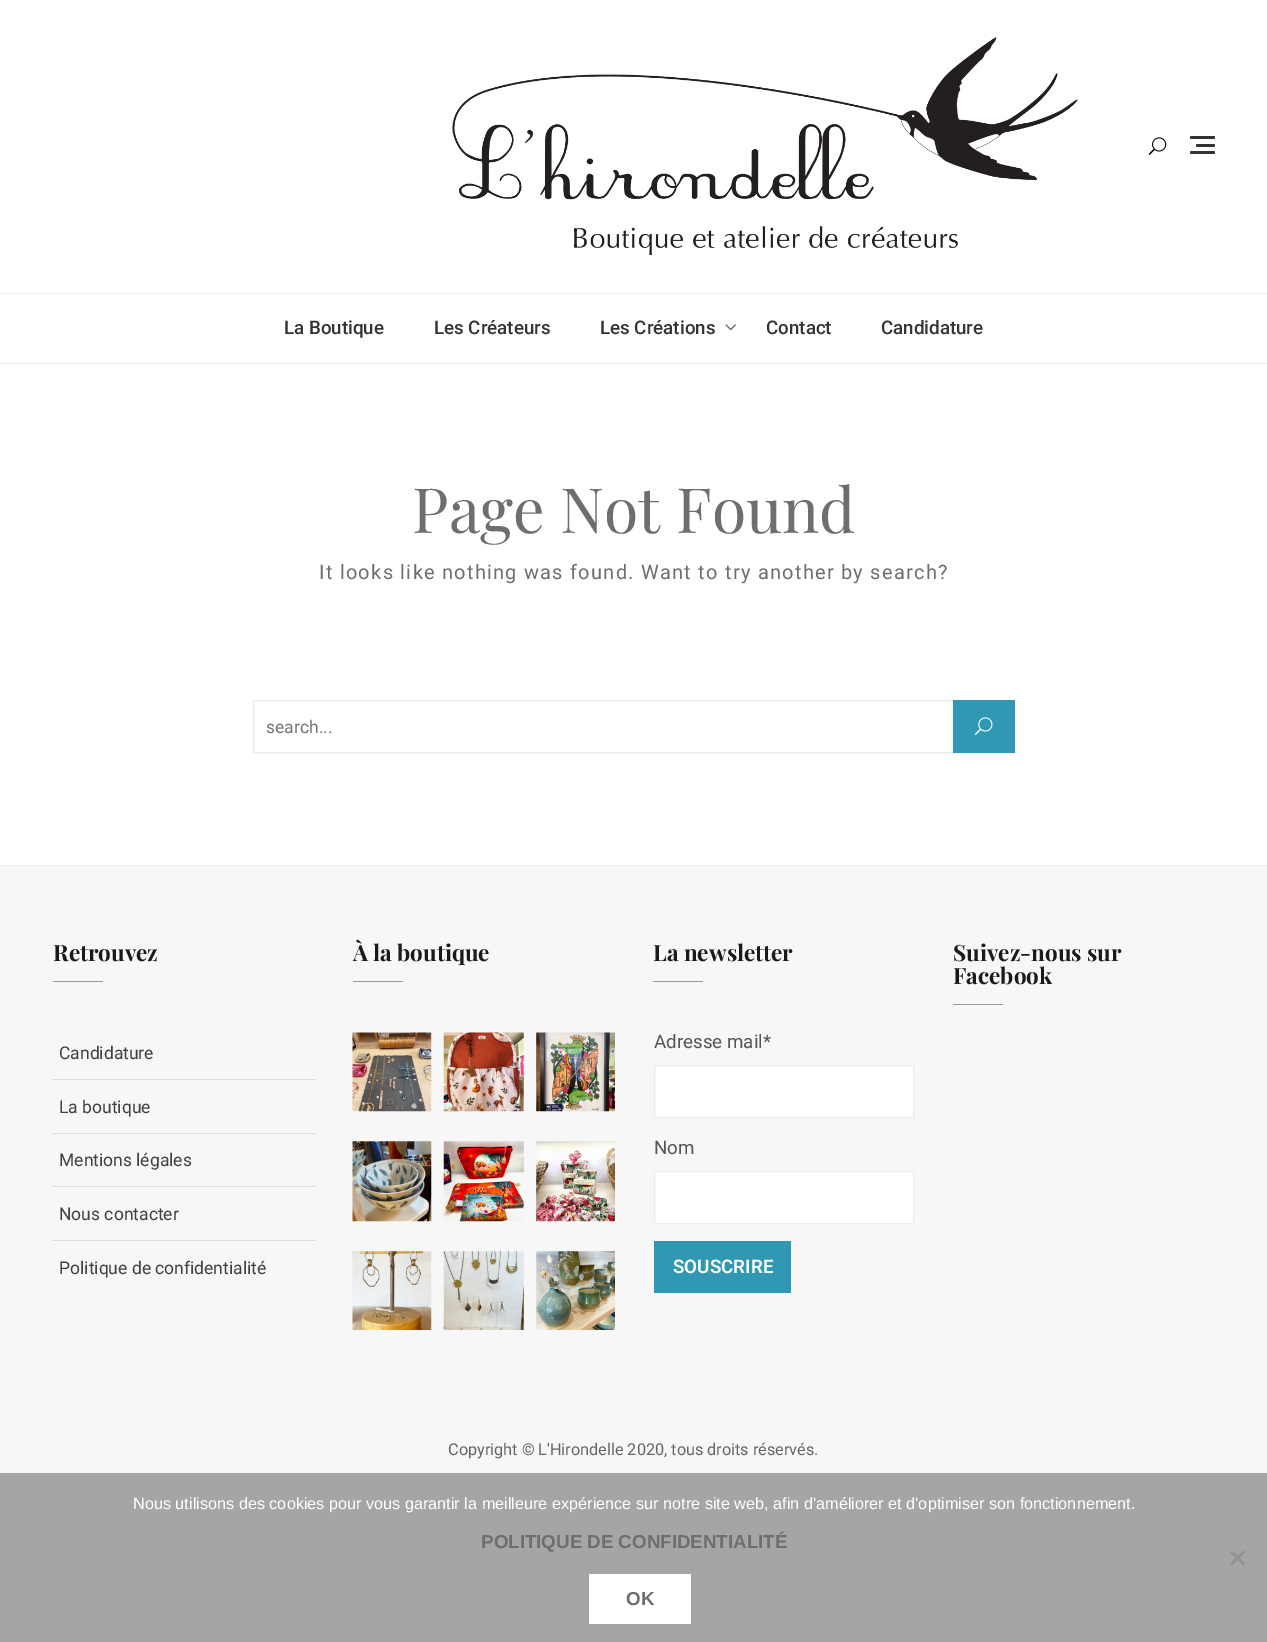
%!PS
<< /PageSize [1267 1642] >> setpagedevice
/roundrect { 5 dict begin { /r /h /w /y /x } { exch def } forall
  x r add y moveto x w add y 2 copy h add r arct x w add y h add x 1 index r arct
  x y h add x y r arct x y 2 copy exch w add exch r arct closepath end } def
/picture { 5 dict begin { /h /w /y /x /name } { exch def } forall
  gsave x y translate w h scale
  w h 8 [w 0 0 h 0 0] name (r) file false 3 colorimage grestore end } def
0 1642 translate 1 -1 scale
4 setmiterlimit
1 setgray
0 0 1267 1642 rectfill
(img1.rgb) 452 37 626 218 picture
(img2.rgb) 1148 137 19 18 picture
0.2 setgray
1196 144 19 3 1.5 roundrect fill
1190 136 25 3 1.5 roundrect fill
1190 151 25 3 1.5 roundrect fill
0.925 setgray
0 293 1267 1 rectfill
/Roboto-Medium [18.75 0 0 -18.75 0 0] selectfont
0.2 setgray
284 334 moveto (La Boutique) show
434 334 moveto (Les Créateurs) show
600 334 moveto (Les Créations) show
(img3.rgb) 725 324 11 7 picture
766 334 moveto (Contact) show
881 334 moveto (Candidature) show
0.925 setgray
0 363 1267 1 rectfill
/PlayfairDisplay-Regular [62.5 0 0 -62.5 0 0] selectfont
0.431 setgray
412 533 moveto (Page Not Found) show
/Roboto-Regular [20 0 0 -20 0 0] selectfont
319 579 moveto 1.25 0 (It looks like nothing was found. Want to try another by search?) ashow
0.925 setgray
253.5 700.5 761 52 rectstroke
/Roboto-Regular [17.5 0 0 -17.5 0 0] selectfont
0.459 setgray
266 733 moveto (search...) show
0.188 0.596 0.698 setrgbcolor
953 700 62 53 rectfill
(img4.rgb) 975 717 18 18 picture
0.969 setgray
0 866 1267 607 rectfill
0.925 setgray
0 865 1267 1 rectfill
/PlayfairDisplay-Bold [22.5 0 0 -22.5 0 0] selectfont
0.102 setgray
53 961 moveto (Retrouvez) show
0.6 setgray
53 981 50 1 rectfill
/Roboto-Regular [17.5 0 0 -17.5 0 0] selectfont
0.255 setgray
59 1059 moveto (Candidature) show
0.871 setgray
53 1079 262 1 rectfill
0.255 setgray
59 1113 moveto (La boutique) show
0.871 setgray
53 1133 262 1 rectfill
0.255 setgray
59 1166 moveto (Mentions légales) show
0.871 setgray
53 1186 262 1 rectfill
0.255 setgray
59 1220 moveto (Nous contacter) show
0.871 setgray
53 1240 262 1 rectfill
0.255 setgray
59 1274 moveto (Politique de confidentialité) show
/PlayfairDisplay-Bold [22.5 0 0 -22.5 0 0] selectfont
0.102 setgray
353 961 moveto (À la boutique) show
0.6 setgray
353 981 50 1 rectfill
(img5.rgb) 352 1032 80 80 picture
(img6.rgb) 443 1032 81 80 picture
(img7.rgb) 536 1032 79 80 picture
(img8.rgb) 352 1141 80 81 picture
(img9.rgb) 443 1141 81 81 picture
(img10.rgb) 536 1141 79 81 picture
(img11.rgb) 352 1251 80 79 picture
(img12.rgb) 443 1251 81 79 picture
(img13.rgb) 536 1251 79 79 picture
0.102 setgray
653 961 moveto (La newsletter) show
0.6 setgray
653 981 50 1 rectfill
/Roboto-Regular [18.75 0 0 -18.75 0 0] selectfont
0.333 setgray
654 1048 moveto (Adresse mail*) show
1 setgray
newpath 654.5 1065.5 moveto 913.5 1065.5 lineto 913.5 1117.5 lineto 654.5 1117.5 lineto closepath gsave fill grestore
0.925 setgray
stroke
0.333 setgray
654 1154 moveto (Nom) show
1 setgray
newpath 654.5 1171.5 moveto 913.5 1171.5 lineto 913.5 1223.5 lineto 654.5 1223.5 lineto closepath gsave fill grestore
0.925 setgray
stroke
0.188 0.596 0.698 setrgbcolor
654 1241 137 52 rectfill
/Roboto-SemiBold [18.75 0 0 -18.75 0 0] selectfont
1 setgray
673 1273 moveto (SOUSCRIRE) show
/PlayfairDisplay-Bold [22.5 0 0 -22.5 0 0] selectfont
0.102 setgray
953 961 moveto (Suivez-nous sur) show
953 984 moveto (Facebook) show
0.6 setgray
953 1004 50 1 rectfill
/Roboto-Regular [16.25 0 0 -16.25 0 0] selectfont
0.396 setgray
448 1455 moveto (Copyright © L'Hirondelle 2020, tous droits réservés.) show
0.647 setgray
0 1473 1267 169 rectfill
/LiberationSans-Regular [16.25 0 0 -16.25 0 0] selectfont
1 setgray
133 1509 moveto (Nous utilisons des cookies pour vous garantir la meilleure expérience sur notre site web, afin d'améliorer et d'optimiser son fonctionnement.) show
/LiberationSans-Bold [18.75 0 0 -18.75 0 0] selectfont
0.431 setgray
481 1548 moveto (POLITIQUE DE CONFIDENTIALITÉ) show
0.576 setgray
newpath 1243 1550.5 moveto 1245 1552.5 lineto 1232 1565.5 lineto 1230 1564 lineto closepath fill
newpath 1230 1552.5 moveto 1232 1550.5 lineto 1245 1564 lineto 1243 1565.5 lineto closepath fill
1 setgray
589 1574 102 50 rectfill
0.431 setgray
626 1605 moveto (OK) show
showpage
